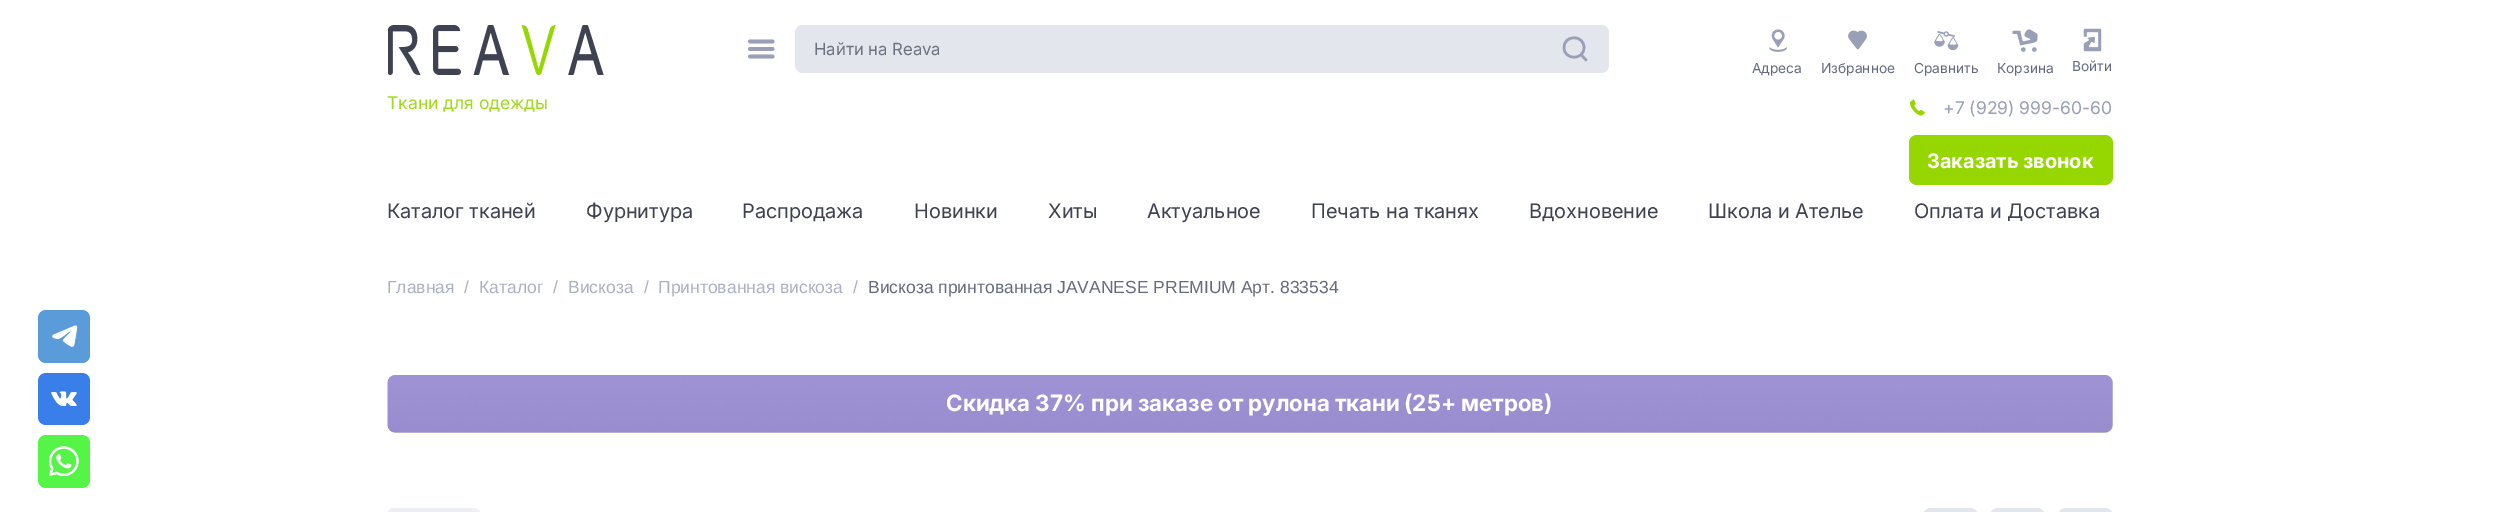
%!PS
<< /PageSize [2498 512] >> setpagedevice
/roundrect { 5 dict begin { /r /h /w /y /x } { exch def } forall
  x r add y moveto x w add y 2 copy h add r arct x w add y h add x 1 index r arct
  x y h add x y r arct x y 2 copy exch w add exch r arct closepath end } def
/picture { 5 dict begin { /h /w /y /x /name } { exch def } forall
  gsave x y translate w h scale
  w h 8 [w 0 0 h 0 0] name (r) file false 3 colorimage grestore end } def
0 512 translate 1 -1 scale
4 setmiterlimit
1 setgray
0 0 2498 512 rectfill
0.353 0.612 0.855 setrgbcolor
38 310 52 53 8 roundrect fill
(img1.rgb) 52 325 26 22 picture
0.22 0.498 0.918 setrgbcolor
38 373 52 52 8 roundrect fill
(img2.rgb) 51 391 26 15 picture
0.333 0.961 0.282 setrgbcolor
38 435 52 53 8 roundrect fill
(img3.rgb) 49 446 30 30 picture
0.596 0.624 0.718 setrgbcolor
3.8 setlinewidth
1 setlinecap
1 setlinejoin
newpath 750 41.5 moveto 772.5 41.5 lineto 750 49 moveto 772.5 49 lineto 750 56.5 moveto 772.5 56.5 lineto stroke
0.894 0.902 0.929 setrgbcolor
795 25 814 48 8 roundrect fill
/Inter-Regular [16.75 0 0 -16.75 0 0] selectfont
0.42 0.447 0.502 setrgbcolor
814 55 moveto (Найти на Reava) show
0.596 0.624 0.718 setrgbcolor
2.5 setlinewidth
newpath 1581 54.5 moveto 1586 60 lineto 1584 47.5 moveto 1584 60.5 1564 60.5 1564 47.5 curveto 1564 34.5 1584 34.5 1584 47.5 curveto closepath stroke
(img4.rgb) 388 25 216 50 picture
/Inter-Regular [17.5 0 0 -17.5 0 0] selectfont
0.631 0.859 0.114 setrgbcolor
387 109 moveto (Ткани для одежды) show
(img5.rgb) 1769 29 18 23 picture
/Inter-Regular [13.75 0 0 -13.75 0 0] selectfont
0.392 0.416 0.502 setrgbcolor
1752 73 moveto (Адреса) show
(img6.rgb) 1848 30 19 20 picture
1821 73 moveto (Избранное) show
(img7.rgb) 1934 31 25 20 picture
1914 73 moveto (Сравнить) show
(img8.rgb) 2012 29 26 23 picture
1997 73 moveto (Корзина) show
(img9.rgb) 2083 28 19 24 picture
2072 71 moveto (Войти) show
(img10.rgb) 1910 99 15 17 picture
/Inter-Regular [17.5 0 0 -17.5 0 0] selectfont
0.596 0.624 0.718 setrgbcolor
1943 114 moveto (+7 \(929\) 999-60-60) show
0.588 0.843 0.004 setrgbcolor
1909 135 204 50 8 roundrect fill
/Inter-Bold [20 0 0 -20 0 0] selectfont
1 setgray
1927 168 moveto (Заказать звонок) show
/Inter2-Regular [20 0 0 -20 0 0] selectfont
0.243 0.259 0.318 setrgbcolor
387 218 moveto (Каталог тканей) show
586 218 moveto (Фурнитура) show
742 218 moveto (Распродажа) show
914 218 moveto (Новинки) show
1048 218 moveto (Хиты) show
1147 218 moveto (Актуальное) show
1311 218 moveto (Печать на тканях) show
1529 218 moveto (Вдохновение) show
1708 218 moveto (Школа и Ателье) show
1914 218 moveto (Оплата и Доставка) show
/LiberationSans-Regular [17.5 0 0 -17.5 0 0] selectfont
0.671 0.694 0.773 setrgbcolor
387 293 moveto (Главная) show
464 293 moveto (/) show
479 293 moveto (Каталог) show
553 293 moveto (/) show
568 293 moveto (Вискоза) show
644 293 moveto (/) show
658 293 moveto (Принтованная вискоза) show
853 293 moveto (/) show
0.392 0.416 0.502 setrgbcolor
868 293 moveto (Вискоза принтованная JAVANESE PREMIUM Арт. 833534) show
0.827 setgray
388 375 1725 58 8 roundrect fill
(img11.rgb) 387 375 1726 58 picture
/Inter2-Bold [22.5 0 0 -22.5 0 0] selectfont
1 setgray
946 411 moveto (Скидка) show
/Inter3-Bold [22.5 0 0 -22.5 0 0] selectfont
1035 411 moveto (37%) show
/Inter2-Bold [22.5 0 0 -22.5 0 0] selectfont
1091 411 moveto (при заказе от рулона ткани) show
/Inter3-Bold [22.5 0 0 -22.5 0 0] selectfont
1404 411 moveto (\(25+) show
/Inter2-Bold [22.5 0 0 -22.5 0 0] selectfont
1461 411 moveto (метров) show
/Inter3-Bold [22.5 0 0 -22.5 0 0] selectfont
1544 411 moveto (\)) show
0.937 0.941 0.957 setrgbcolor
newpath 473 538 moveto 394 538 lineto 390 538 387 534 387 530 curveto 387 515 lineto 387 511 390 508 394 508 curveto 473 508 lineto 477 508 481 511 481 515 curveto 481 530 lineto 481 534 477 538 473 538 curveto closepath fill
0.894 0.902 0.929 setrgbcolor
1923 508 55 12 8 roundrect fill
1990 508 55 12 8 roundrect fill
2058 508 55 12 8 roundrect fill
showpage
